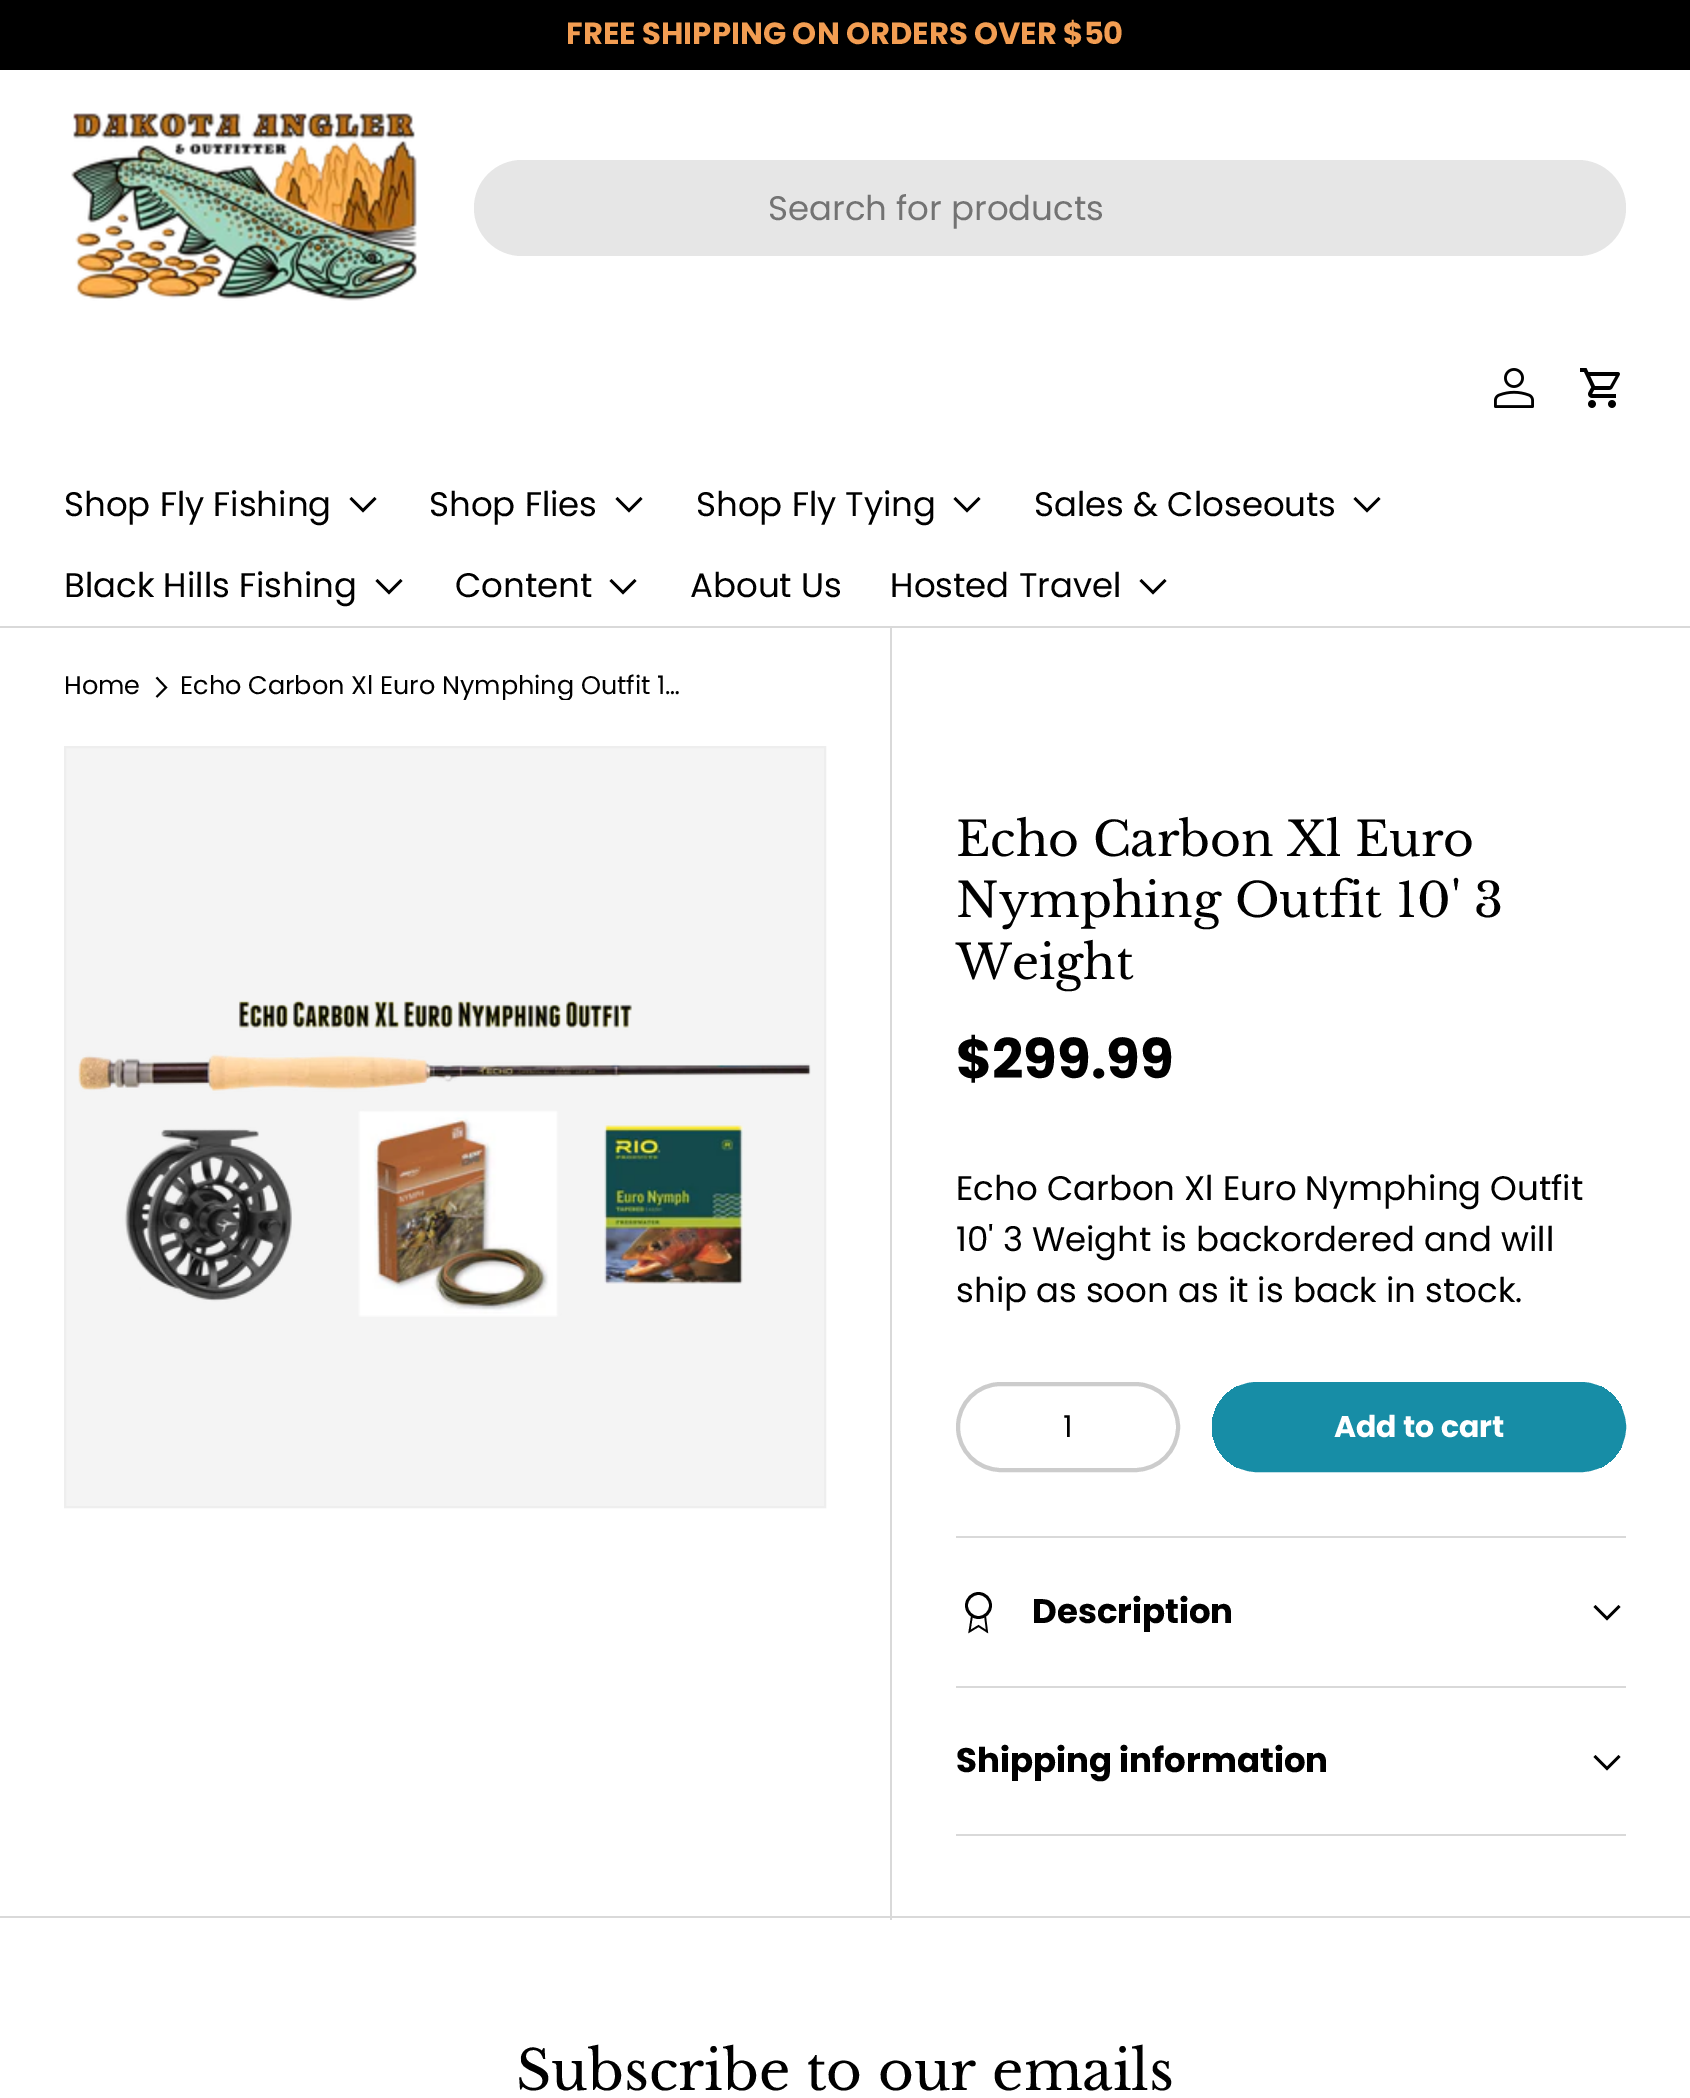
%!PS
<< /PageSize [1690 2098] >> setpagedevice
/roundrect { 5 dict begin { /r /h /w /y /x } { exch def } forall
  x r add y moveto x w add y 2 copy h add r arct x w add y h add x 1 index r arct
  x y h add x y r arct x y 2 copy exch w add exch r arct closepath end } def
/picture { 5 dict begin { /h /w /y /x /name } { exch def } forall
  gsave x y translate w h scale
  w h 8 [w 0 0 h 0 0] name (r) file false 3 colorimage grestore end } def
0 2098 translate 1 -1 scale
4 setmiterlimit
1 setgray
0 0 1690 2098 rectfill
0 setgray
0 0 1690 70 rectfill
/Poppins-Bold [30.6 0 0 -30.6 0 0] selectfont
0.949 0.616 0.322 setrgbcolor
566 44 moveto (FREE SHIPPING ON ORDERS OVER $50) show
0.851 setgray
0 626 1690 2 rectfill
(img1.rgb) 71 111 346 190 picture
0.902 setgray
474 160 1152 96 48 roundrect fill
/Poppins-Regular [34 0 0 -34 0 0] selectfont
0.451 setgray
768 220 moveto (Search for products) show
(img2.rgb) 1494 368 40 40 picture
(img3.rgb) 1580 368 40 40 picture
0 setgray
64 516 moveto (Shop Fly Fishing) show
2.5 setlinewidth
newpath 375.5 498 moveto 363 510.5 lineto 350.5 498 lineto stroke
429 516 moveto (Shop Flies) show
newpath 641.5 498 moveto 629 510.5 lineto 616.5 498 lineto stroke
696 516 moveto (Shop Fly Tying) show
newpath 979.5 498 moveto 967 510.5 lineto 954.5 498 lineto stroke
1034 516 moveto (Sales & Closeouts) show
newpath 1379.5 498 moveto 1367 510.5 lineto 1354.5 498 lineto stroke
64 597 moveto (Black Hills Fishing) show
newpath 401.5 580 moveto 389 592.5 lineto 376.5 580 lineto stroke
455 597 moveto (Content) show
newpath 635.5 580 moveto 623 592.5 lineto 610.5 580 lineto stroke
690 597 moveto (About Us) show
890 597 moveto (Hosted Travel) show
newpath 1165.5 580 moveto 1153 592.5 lineto 1140.5 580 lineto stroke
/Poppins-Regular [25.5 0 0 -25.5 0 0] selectfont
64 694 moveto (Home) show
1.9 setlinewidth
newpath 156.5 677.5 moveto 166 687.5 lineto 156.5 697 lineto stroke
gsave
180 674 510 26 rectclip
180 694 moveto (Echo Carbon Xl Euro Nymphing Outfit 1…) show
grestore
0.957 setgray
newpath 65 747 moveto 825 747 lineto 825 1507 lineto 65 1507 lineto closepath gsave fill grestore
0.933 setgray
2 setlinewidth
stroke
(img4.rgb) 78 1000 733 317 picture
0.851 setgray
0 1916 1690 2 rectfill
890 628 2 1292 rectfill
/LibreBaskerville-Regular [47.25 0 0 -47.25 0 0] selectfont
0 setgray
956 856 moveto (Echo Carbon Xl Euro) show
956 917 moveto (Nymphing Outfit 10' 3) show
956 979 moveto (Weight) show
/Poppins-Bold [54.75 0 0 -54.75 0 0] selectfont
956 1078 moveto ($299.99) show
/Poppins-Regular [34 0 0 -34 0 0] selectfont
956 1200 moveto (Echo Carbon Xl Euro Nymphing Outfit) show
956 1251 moveto (10' 3 Weight is backordered and will) show
956 1302 moveto (ship as soon as it is back in stock.) show
0.8 setgray
4 setlinewidth
958 1384 220 86 43 roundrect stroke
/Poppins-Regular [30 0 0 -30 0 0] selectfont
0 setgray
1063 1437 moveto (1) show
gsave
1212 1382 414 90 45 roundrect clip newpath
gsave newpath 1212 1386 moveto 1622 1386 lineto 1622 1468 lineto 1212 1468 lineto closepath clip newpath
<< /ShadingType 2 /ColorSpace /DeviceRGB /Coords [430 1282 1596 1572] /Extend [true true] /Function << /FunctionType 3 /Domain [0 1] /Functions [<< /FunctionType 2 /Domain [0 1] /C0 [0.243 0.659 0.749] /C1 [0.243 0.659 0.749] /N 1 >> << /FunctionType 2 /Domain [0 1] /C0 [0.09 0.553 0.651] /C1 [0.09 0.553 0.651] /N 1 >>] /Bounds [0.6] /Encode [0 1 0 1] >> >> shfill grestore
grestore
0.09 0.553 0.651 setrgbcolor
1214 1384 410 86 43 roundrect stroke
/Poppins-Bold [30 0 0 -30 0 0] selectfont
1 setgray
1334 1437 moveto (Add to cart) show
0.851 setgray
956 1536 670 2 rectfill
956 1686 670 2 rectfill
0 setgray
2.8 setlinewidth
newpath 978.5 1605.5 12 0 360 arc closepath stroke
1.7 setlinewidth
newpath 972 1615.5 moveto 969.5 1631.5 lineto 978.5 1626 lineto 987 1631.5 lineto 985 1615.5 lineto stroke
/Poppins-Bold [34 0 0 -34 0 0] selectfont
1032 1623 moveto (Description) show
2.5 setlinewidth
newpath 1619.5 1606 moveto 1607 1618.5 lineto 1594.5 1606 lineto stroke
0.851 setgray
956 1834 670 2 rectfill
0 setgray
956 1772 moveto (Shipping information) show
newpath 1619.5 1756 moveto 1607 1768.5 lineto 1594.5 1756 lineto stroke
/LibreBaskerville-Regular [54.75 0 0 -54.75 0 0] selectfont
516 2090 moveto (Subscribe to our emails) show
showpage
